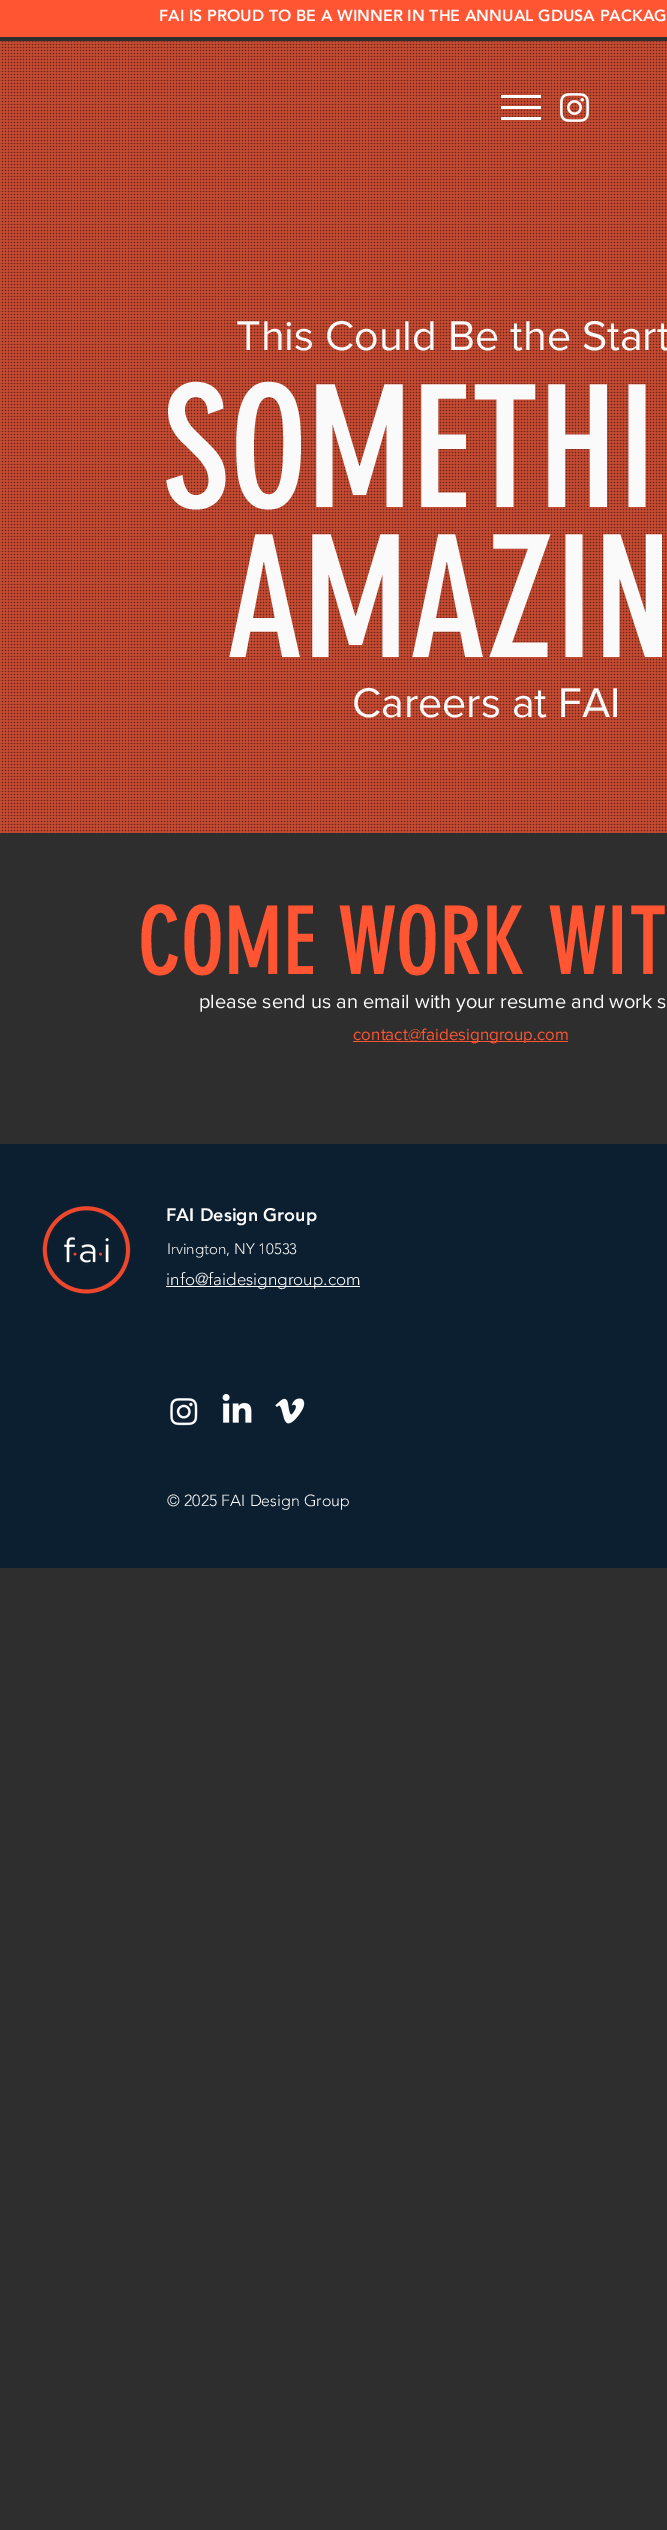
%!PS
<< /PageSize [667 2530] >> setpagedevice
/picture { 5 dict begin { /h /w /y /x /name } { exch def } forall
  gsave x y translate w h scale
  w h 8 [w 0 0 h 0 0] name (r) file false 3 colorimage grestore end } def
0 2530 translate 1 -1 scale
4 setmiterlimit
0.18 setgray
0 0 667 2530 rectfill
1 0.333 0.2 setrgbcolor
0 0 667 37 rectfill
/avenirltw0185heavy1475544-Black [16 0 0 -16 0 0] selectfont
0.98 setgray
159 21 moveto (FAI IS PROUD TO BE A WINNER IN THE ANNUAL GDUSA PACKAG) show
0.78 0.29 0.196 setrgbcolor
0 41 667 792 rectfill
(img2.rgb) 0 41 667 792 picture
1 setgray
501 117 40 3 rectfill
501 95 40 3 rectfill
501 106 40 3 rectfill
(img1.rgb) 560 93 29 29 picture
/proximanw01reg-Regular [43 0 0 -43 0 0] selectfont
0.98 setgray
236 350 moveto (This Could Be the Start) show
/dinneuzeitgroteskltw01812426-Regular [167 0 0 -167 0 0] selectfont
162 507 moveto (SOMETHI) show
226 657 moveto (AMAZIN) show
/proximanw01reg-Regular [43 0 0 -43 0 0] selectfont
352 717 moveto (Careers at FAI) show
/dinneuzeitgroteskltw01812426-Regular [93 0 0 -93 0 0] selectfont
1 0.333 0.2 setrgbcolor
138 974 moveto (COME WORK WIT) show
/proximanw01reg-Regular [20 0 0 -20 0 0] selectfont
0.98 setgray
199 1008 moveto (please send us an email with your resume and work s) show
1 0.333 0.2 setrgbcolor
353 1041 215 1 rectfill
/proximanw01reg-Regular [17 0 0 -17 0 0] selectfont
353 1040 moveto (contact@faidesigngroup.com) show
0.047 0.122 0.188 setrgbcolor
0 1144 667 424 rectfill
(img3.rgb) 42 1206 89 88 picture
/avenirltw0185heavy1475544-Black [18 0 0 -18 0 0] selectfont
0.98 setgray
166 1221 moveto (FAI Design Group) show
/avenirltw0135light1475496-Light [15 0 0 -15 0 0] selectfont
167 1254 moveto (Irvington, NY 10533) show
1 setgray
166 1286 194 1 rectfill
/avenirltw0135light1475496-Light [17 0 0 -17 0 0] selectfont
0.98 setgray
166 1285 moveto (info@faidesigngroup.com) show
(img4.rgb) 170 1398 28 28 picture
(img5.rgb) 222 1393 30 30 picture
(img6.rgb) 275 1398 30 26 picture
/avenirltw0135light1475496-Light [16 0 0 -16 0 0] selectfont
167 1506 moveto (© 2025 FAI Design Group) show
showpage
